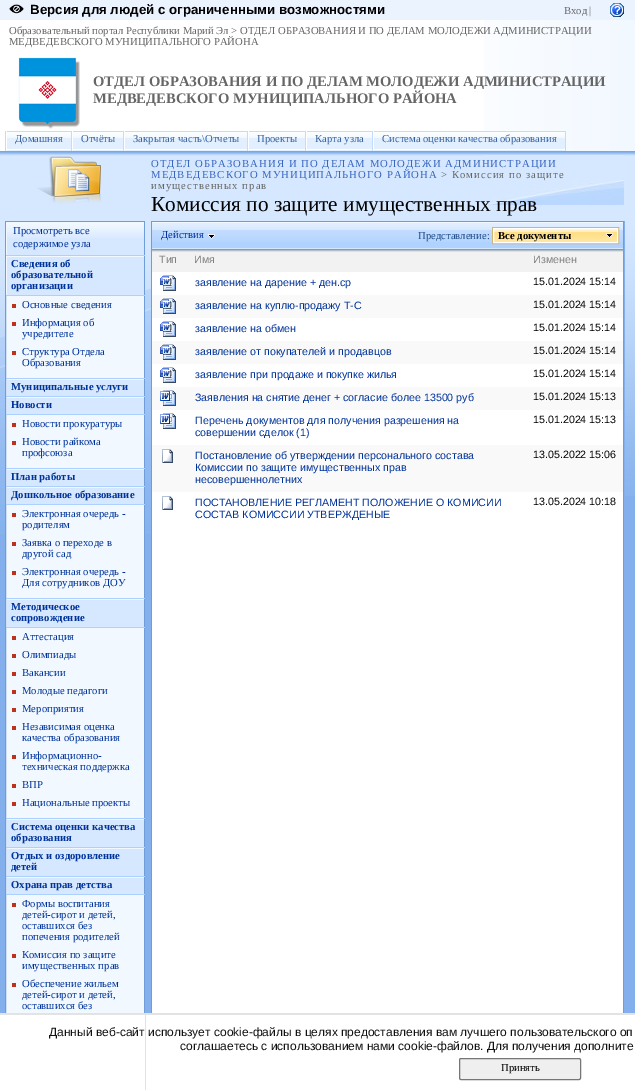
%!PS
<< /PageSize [635 1090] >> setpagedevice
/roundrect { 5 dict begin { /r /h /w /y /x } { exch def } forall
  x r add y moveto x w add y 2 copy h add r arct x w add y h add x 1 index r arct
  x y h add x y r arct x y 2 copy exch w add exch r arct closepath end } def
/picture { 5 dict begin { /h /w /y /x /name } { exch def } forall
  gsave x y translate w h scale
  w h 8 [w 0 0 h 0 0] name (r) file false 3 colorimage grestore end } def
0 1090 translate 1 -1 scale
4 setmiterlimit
1 setgray
0 0 635 1090 rectfill
0.922 0.953 1 setrgbcolor
0 0 635 20 rectfill
(img1.rgb) 9 4 15 10 picture
/LiberationSans-Bold [13.3 0 0 -13.3 0 0] selectfont
0 setgray
30 14 moveto (Версия для людей с ограниченными возможностями) show
/LiberationSerif-Regular [10.67 0 0 -10.67 0 0] selectfont
0.4 setgray
564 14 moveto (Вход) show
589 14 moveto (|) show
(img2.rgb) 610 3 14 14 picture
(img3.rgb) 484 20 151 111 picture
9 34 moveto (Образовательный портал Республики Марий Эл > ОТДЕЛ ОБРАЗОВАНИЯ И ПО ДЕЛАМ МОЛОДЕЖИ АДМИНИСТРАЦИИ) show
9 45 moveto (МЕДВЕДЕВСКОГО МУНИЦИПАЛЬНОГО РАЙОНА) show
(img4.rgb) 18 57 62 72 picture
/LiberationSerif-Bold [14.65 0 0 -14.65 0 0] selectfont
93 86 moveto (ОТДЕЛ ОБРАЗОВАНИЯ И ПО ДЕЛАМ МОЛОДЕЖИ АДМИНИСТРАЦИИ) show
93 103 moveto (МЕДВЕДЕВСКОГО МУНИЦИПАЛЬНОГО РАЙОНА) show
(img5.rgb) 566 131 69 20 picture
0.761 0.863 1 setrgbcolor
5 131 1 20 rectfill
6 131 560 1 rectfill
71 131 1 20 rectfill
1 setgray
6 131 1 1 rectfill
0.886 0.937 1 setrgbcolor
7 150 64 1 rectfill
(img6.rgb) 7 132 64 18 picture
/LiberationSerif-Regular [10.67 0 0 -10.67 0 0] selectfont
0.216 0.392 0.627 setrgbcolor
15 142 moveto (Домашняя) show
0.761 0.863 1 setrgbcolor
123 131 1 20 rectfill
1 setgray
72 131 1 1 rectfill
0.886 0.937 1 setrgbcolor
73 150 50 1 rectfill
(img7.rgb) 73 132 50 18 picture
0.216 0.392 0.627 setrgbcolor
81 142 moveto (Отчёты) show
0.761 0.863 1 setrgbcolor
247 131 1 20 rectfill
1 setgray
124 131 1 1 rectfill
0.886 0.937 1 setrgbcolor
125 150 122 1 rectfill
(img8.rgb) 125 132 122 18 picture
0.216 0.392 0.627 setrgbcolor
133 142 moveto (Закрытая часть\\Отчеты) show
0.761 0.863 1 setrgbcolor
305 131 1 20 rectfill
1 setgray
248 131 1 1 rectfill
0.886 0.937 1 setrgbcolor
249 150 56 1 rectfill
(img9.rgb) 249 132 56 18 picture
0.216 0.392 0.627 setrgbcolor
257 142 moveto (Проекты) show
0.761 0.863 1 setrgbcolor
372 131 1 20 rectfill
1 setgray
306 131 1 1 rectfill
0.886 0.937 1 setrgbcolor
307 150 65 1 rectfill
(img10.rgb) 307 132 65 18 picture
0.216 0.392 0.627 setrgbcolor
315 142 moveto (Карта узла) show
0.761 0.863 1 setrgbcolor
565 131 1 20 rectfill
1 setgray
373 131 1 1 rectfill
0.886 0.937 1 setrgbcolor
374 150 191 1 rectfill
(img11.rgb) 374 132 191 18 picture
0.216 0.392 0.627 setrgbcolor
382 142 moveto (Система оценки качества образования) show
0.839 0.91 1 setrgbcolor
0 156 145 65 rectfill
(img12.rgb) 0 151 145 5 picture
(img13.rgb) 37 156 64 48 picture
145 151 6 70 rectfill
(img14.rgb) 145 151 6 5 picture
(img15.rgb) 624 151 11 5 picture
151 156 484 65 rectfill
(img16.rgb) 151 151 473 5 picture
(img17.rgb) 483 155 141 50 picture
0.224 0.4 0.749 setrgbcolor
151 167 moveto 1.07 0 (ОТДЕЛ ОБРАЗОВАНИЯ И ПО ДЕЛАМ МОЛОДЕЖИ АДМИНИСТРАЦИИ) ashow
151 178 moveto 1.07 0 (МЕДВЕДЕВСКОГО МУНИЦИПАЛЬНОГО РАЙОНА) ashow
0.4 setgray
441 178 moveto 1.07 0 (> Комиссия по защите) ashow
151 189 moveto 1.07 0 (имущественных прав) ashow
/LiberationSerif-Regular [21.3 0 0 -21.3 0 0] selectfont
0 setgray
151 211 moveto (Комиссия по защите имущественных прав) show
0.514 0.69 0.925 setrgbcolor
0 534 5 479 rectfill
(img18.rgb) 0 221 5 313 picture
0.949 0.973 1 setrgbcolor
6 296 138 717 rectfill
0.435 0.616 0.851 setrgbcolor
5.5 221.5 139 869 rectstroke
0.839 0.91 1 setrgbcolor
7 238 137 17 rectfill
(img19.rgb) 7 222 137 16 picture
0.949 0.973 1 setrgbcolor
6 222 1 33 rectfill
/LiberationSerif-Regular [10.67 0 0 -10.67 0 0] selectfont
0 0.2 0.6 setrgbcolor
13 234 moveto (Просмотреть все) show
13 247 moveto (содержимое узла) show
0.678 0.82 1 setrgbcolor
6 255 139 1 rectfill
0.839 0.91 1 setrgbcolor
7 257 137 38 rectfill
0.949 0.973 1 setrgbcolor
6 256 138 1 rectfill
6 256 1 39 rectfill
/LiberationSerif-Bold [10.67 0 0 -10.67 0 0] selectfont
0 0.2 0.6 setrgbcolor
11 267 moveto (Сведения об) show
11 278 moveto (образовательной) show
11 289 moveto (организации) show
0.678 0.82 1 setrgbcolor
6 295 139 1 rectfill
0.737 0.196 0.102 setrgbcolor
12 304 4 4 rectfill
/LiberationSerif-Regular [10.67 0 0 -10.67 0 0] selectfont
0 0.2 0.6 setrgbcolor
22 308 moveto (Основные сведения) show
0.737 0.196 0.102 setrgbcolor
12 322 4 4 rectfill
0 0.2 0.6 setrgbcolor
22 326 moveto (Информация об) show
22 337 moveto (учредителе) show
0.737 0.196 0.102 setrgbcolor
12 351 4 4 rectfill
0 0.2 0.6 setrgbcolor
22 355 moveto (Структура Отдела) show
22 366 moveto (Образования) show
0.678 0.82 1 setrgbcolor
6 378 139 1 rectfill
0.839 0.91 1 setrgbcolor
7 380 137 16 rectfill
/LiberationSerif-Bold [10.67 0 0 -10.67 0 0] selectfont
0 0.2 0.6 setrgbcolor
11 390 moveto (Муниципальные услуги) show
0.678 0.82 1 setrgbcolor
6 396 139 1 rectfill
0.839 0.91 1 setrgbcolor
7 398 137 16 rectfill
0 0.2 0.6 setrgbcolor
11 408 moveto (Новости) show
0.678 0.82 1 setrgbcolor
6 414 139 1 rectfill
0.737 0.196 0.102 setrgbcolor
12 423 4 4 rectfill
/LiberationSerif-Regular [10.67 0 0 -10.67 0 0] selectfont
0 0.2 0.6 setrgbcolor
22 427 moveto (Новости прокуратуры) show
0.737 0.196 0.102 setrgbcolor
12 441 4 4 rectfill
0 0.2 0.6 setrgbcolor
22 445 moveto (Новости райкома) show
22 456 moveto (профсоюза) show
0.678 0.82 1 setrgbcolor
6 468 139 1 rectfill
0.839 0.91 1 setrgbcolor
7 470 137 16 rectfill
/LiberationSerif-Bold [10.67 0 0 -10.67 0 0] selectfont
0 0.2 0.6 setrgbcolor
11 480 moveto (План работы) show
0.678 0.82 1 setrgbcolor
6 486 139 1 rectfill
0.839 0.91 1 setrgbcolor
7 488 137 16 rectfill
0 0.2 0.6 setrgbcolor
11 498 moveto (Дошкольное образование) show
0.678 0.82 1 setrgbcolor
6 504 139 1 rectfill
0.737 0.196 0.102 setrgbcolor
12 513 4 4 rectfill
/LiberationSerif-Regular [10.67 0 0 -10.67 0 0] selectfont
0 0.2 0.6 setrgbcolor
22 517 moveto (Электронная очередь -) show
22 528 moveto (родителям) show
0.737 0.196 0.102 setrgbcolor
12 542 4 4 rectfill
0 0.2 0.6 setrgbcolor
22 546 moveto (Заявка о переходе в) show
22 557 moveto (другой сад) show
0.737 0.196 0.102 setrgbcolor
12 571 4 4 rectfill
0 0.2 0.6 setrgbcolor
22 575 moveto (Электронная очередь -) show
22 586 moveto (Для сотрудников ДОУ) show
0.678 0.82 1 setrgbcolor
6 598 139 1 rectfill
0.839 0.91 1 setrgbcolor
7 600 137 27 rectfill
/LiberationSerif-Bold [10.67 0 0 -10.67 0 0] selectfont
0 0.2 0.6 setrgbcolor
11 610 moveto (Методическое) show
11 621 moveto (сопровождение) show
0.678 0.82 1 setrgbcolor
6 627 139 1 rectfill
0.737 0.196 0.102 setrgbcolor
12 636 4 4 rectfill
/LiberationSerif-Regular [10.67 0 0 -10.67 0 0] selectfont
0 0.2 0.6 setrgbcolor
22 640 moveto (Аттестация) show
0.737 0.196 0.102 setrgbcolor
12 654 4 4 rectfill
0 0.2 0.6 setrgbcolor
22 658 moveto (Олимпиады) show
0.737 0.196 0.102 setrgbcolor
12 672 4 4 rectfill
0 0.2 0.6 setrgbcolor
22 676 moveto (Вакансии) show
0.737 0.196 0.102 setrgbcolor
12 690 4 4 rectfill
0 0.2 0.6 setrgbcolor
22 694 moveto (Молодые педагоги) show
0.737 0.196 0.102 setrgbcolor
12 708 4 4 rectfill
0 0.2 0.6 setrgbcolor
22 712 moveto (Мероприятия) show
0.737 0.196 0.102 setrgbcolor
12 726 4 4 rectfill
0 0.2 0.6 setrgbcolor
22 730 moveto (Независимая оценка) show
22 741 moveto (качества образования) show
0.737 0.196 0.102 setrgbcolor
12 755 4 4 rectfill
0 0.2 0.6 setrgbcolor
22 759 moveto (Информационно-) show
22 770 moveto (техническая поддержка) show
0.737 0.196 0.102 setrgbcolor
12 784 4 4 rectfill
0 0.2 0.6 setrgbcolor
22 788 moveto (ВПР) show
0.737 0.196 0.102 setrgbcolor
12 802 4 4 rectfill
0 0.2 0.6 setrgbcolor
22 806 moveto (Национальные проекты) show
0.678 0.82 1 setrgbcolor
6 818 139 1 rectfill
0.839 0.91 1 setrgbcolor
7 820 137 27 rectfill
/LiberationSerif-Bold [10.67 0 0 -10.67 0 0] selectfont
0 0.2 0.6 setrgbcolor
11 830 moveto (Система оценки качества) show
11 841 moveto (образования) show
0.678 0.82 1 setrgbcolor
6 847 139 1 rectfill
0.839 0.91 1 setrgbcolor
7 849 137 27 rectfill
0 0.2 0.6 setrgbcolor
11 859 moveto (Отдых и оздоровление) show
11 870 moveto (детей) show
0.678 0.82 1 setrgbcolor
6 876 139 1 rectfill
0.839 0.91 1 setrgbcolor
7 878 137 16 rectfill
0 0.2 0.6 setrgbcolor
11 888 moveto (Охрана прав детства) show
0.678 0.82 1 setrgbcolor
6 894 139 1 rectfill
0.737 0.196 0.102 setrgbcolor
12 903 4 4 rectfill
/LiberationSerif-Regular [10.67 0 0 -10.67 0 0] selectfont
0 0.2 0.6 setrgbcolor
22 907 moveto (Формы воспитания) show
22 918 moveto (детей-сирот и детей,) show
22 929 moveto (оставшихся без) show
22 940 moveto (попечения родителей) show
0.737 0.196 0.102 setrgbcolor
12 954 4 4 rectfill
0 0.2 0.6 setrgbcolor
22 958 moveto (Комиссия по защите) show
22 969 moveto (имущественных прав) show
0.737 0.196 0.102 setrgbcolor
12 983 4 4 rectfill
0 0.2 0.6 setrgbcolor
22 987 moveto (Обеспечение жильем) show
22 998 moveto (детей-сирот и детей,) show
22 1009 moveto (оставшихся без) show
0.514 0.69 0.925 setrgbcolor
145 534 6 479 rectfill
(img20.rgb) 145 221 6 313 picture
0.435 0.616 0.851 setrgbcolor
151 221 473 1 rectfill
623 221 1 792 rectfill
151 221 1 792 rectfill
0.686 0.824 1 setrgbcolor
152 242 471 6 rectfill
(img21.rgb) 152 223 471 19 picture
0.435 0.616 0.851 setrgbcolor
152 249 471 1 rectfill
0.949 0.973 1 setrgbcolor
152 222 471 1 rectfill
0.839 0.91 1 setrgbcolor
152 248 471 1 rectfill
0 0.2 0.6 setrgbcolor
161 238 moveto (Действия) show
(img22.rgb) 208 234 7 5 picture
0.125 0.302 0.537 setrgbcolor
418 239 moveto (Представление:) show
1 0.902 0.627 setrgbcolor
494 240 123 2 rectfill
(img23.rgb) 494 229 123 11 picture
0.824 0.706 0.478 setrgbcolor
492.5 227.5 126 16 rectstroke
(img24.rgb) 606 233 7 5 picture
1 setgray
493.5 228.5 124 14 rectstroke
/LiberationSerif-Bold [10.67 0 0 -10.67 0 0] selectfont
0 setgray
498 239 moveto (Все документы) show
0.949 setgray
152 252 471 20 rectfill
(img25.rgb) 152 250 35 2 picture
/LiberationSans-Regular [10.67 0 0 -10.67 0 0] selectfont
0.502 setgray
159 263 moveto (Тип) show
(img26.rgb) 187 250 339 2 picture
194 263 moveto (Имя) show
(img27.rgb) 526 250 97 2 picture
533 263 moveto (Изменен) show
(img28.rgb) 160 275 16 16 picture
0 0.2 0.6 setrgbcolor
195 286 moveto (заявление на дарение + ден.ср) show
0 setgray
533 285 moveto (15.01.2024 15:14) show
0.976 setgray
152 295 471 23 rectfill
(img29.rgb) 160 298 16 16 picture
0 0.2 0.6 setrgbcolor
195 309 moveto (заявление на куплю-продажу Т-С) show
0 setgray
533 308 moveto (15.01.2024 15:14) show
(img28.rgb) 160 321 16 16 picture
0 0.2 0.6 setrgbcolor
195 332 moveto (заявление на обмен) show
0 setgray
533 331 moveto (15.01.2024 15:14) show
0.976 setgray
152 341 471 23 rectfill
(img29.rgb) 160 344 16 16 picture
0 0.2 0.6 setrgbcolor
195 355 moveto (заявление от покупателей и продавцов) show
0 setgray
533 354 moveto (15.01.2024 15:14) show
(img28.rgb) 160 367 16 16 picture
0 0.2 0.6 setrgbcolor
195 378 moveto (заявление при продаже и покупке жилья) show
0 setgray
533 377 moveto (15.01.2024 15:14) show
0.976 setgray
152 387 471 23 rectfill
(img30.rgb) 160 390 16 16 picture
0 0.2 0.6 setrgbcolor
195 401 moveto (Заявления на снятие денег + согласие более 13500 руб) show
0 setgray
533 400 moveto (15.01.2024 15:13) show
(img31.rgb) 160 413 16 16 picture
0 0.2 0.6 setrgbcolor
195 424 moveto (Перечень документов для получения разрешения на) show
195 436 moveto (совершении сделок \(1\)) show
0 setgray
533 423 moveto (15.01.2024 15:13) show
0.976 setgray
152 445 471 47 rectfill
(img32.rgb) 162 449 11 14 picture
0 0.2 0.6 setrgbcolor
195 459 moveto (Постановление об утверждении персонального состава) show
195 471 moveto (Комиссии по защите имущественных прав) show
195 483 moveto (несовершеннолетних) show
0 setgray
533 458 moveto (13.05.2022 15:06) show
(img33.rgb) 162 496 11 14 picture
0 0.2 0.6 setrgbcolor
195 506 moveto (ПОСТАНОВЛЕНИЕ РЕГЛАМЕНТ ПОЛОЖЕНИЕ О КОМИСИИ) show
195 518 moveto (СОСТАВ КОМИССИИ УТВЕРЖДЕНЫЕ) show
0 setgray
533 505 moveto (13.05.2024 10:18) show
0.514 0.69 0.925 setrgbcolor
625 496 10 517 rectfill
(img34.rgb) 625 221 10 275 picture
624 221 1 792 rectfill
1 setgray
5 1015 140 75 rectfill
0.89 setgray
0 1013 635 2 rectfill
/LiberationSans-Regular [12 0 0 -12 0 0] selectfont
0.067 setgray
49 1036 moveto (Данный веб-сайт использует cookie-файлы в целях предоставления вам лучшего пользовательского оп) show
180 1050 moveto (соглашаетесь с использованием нами cookie-файлов. Для получения дополните) show
0.937 setgray
459.5 1058.5 121 21 1.5 roundrect gsave fill grestore
0.463 setgray
stroke
/LiberationSerif-Regular [10.67 0 0 -10.67 0 0] selectfont
0 setgray
501 1071 moveto (Принять) show
showpage
